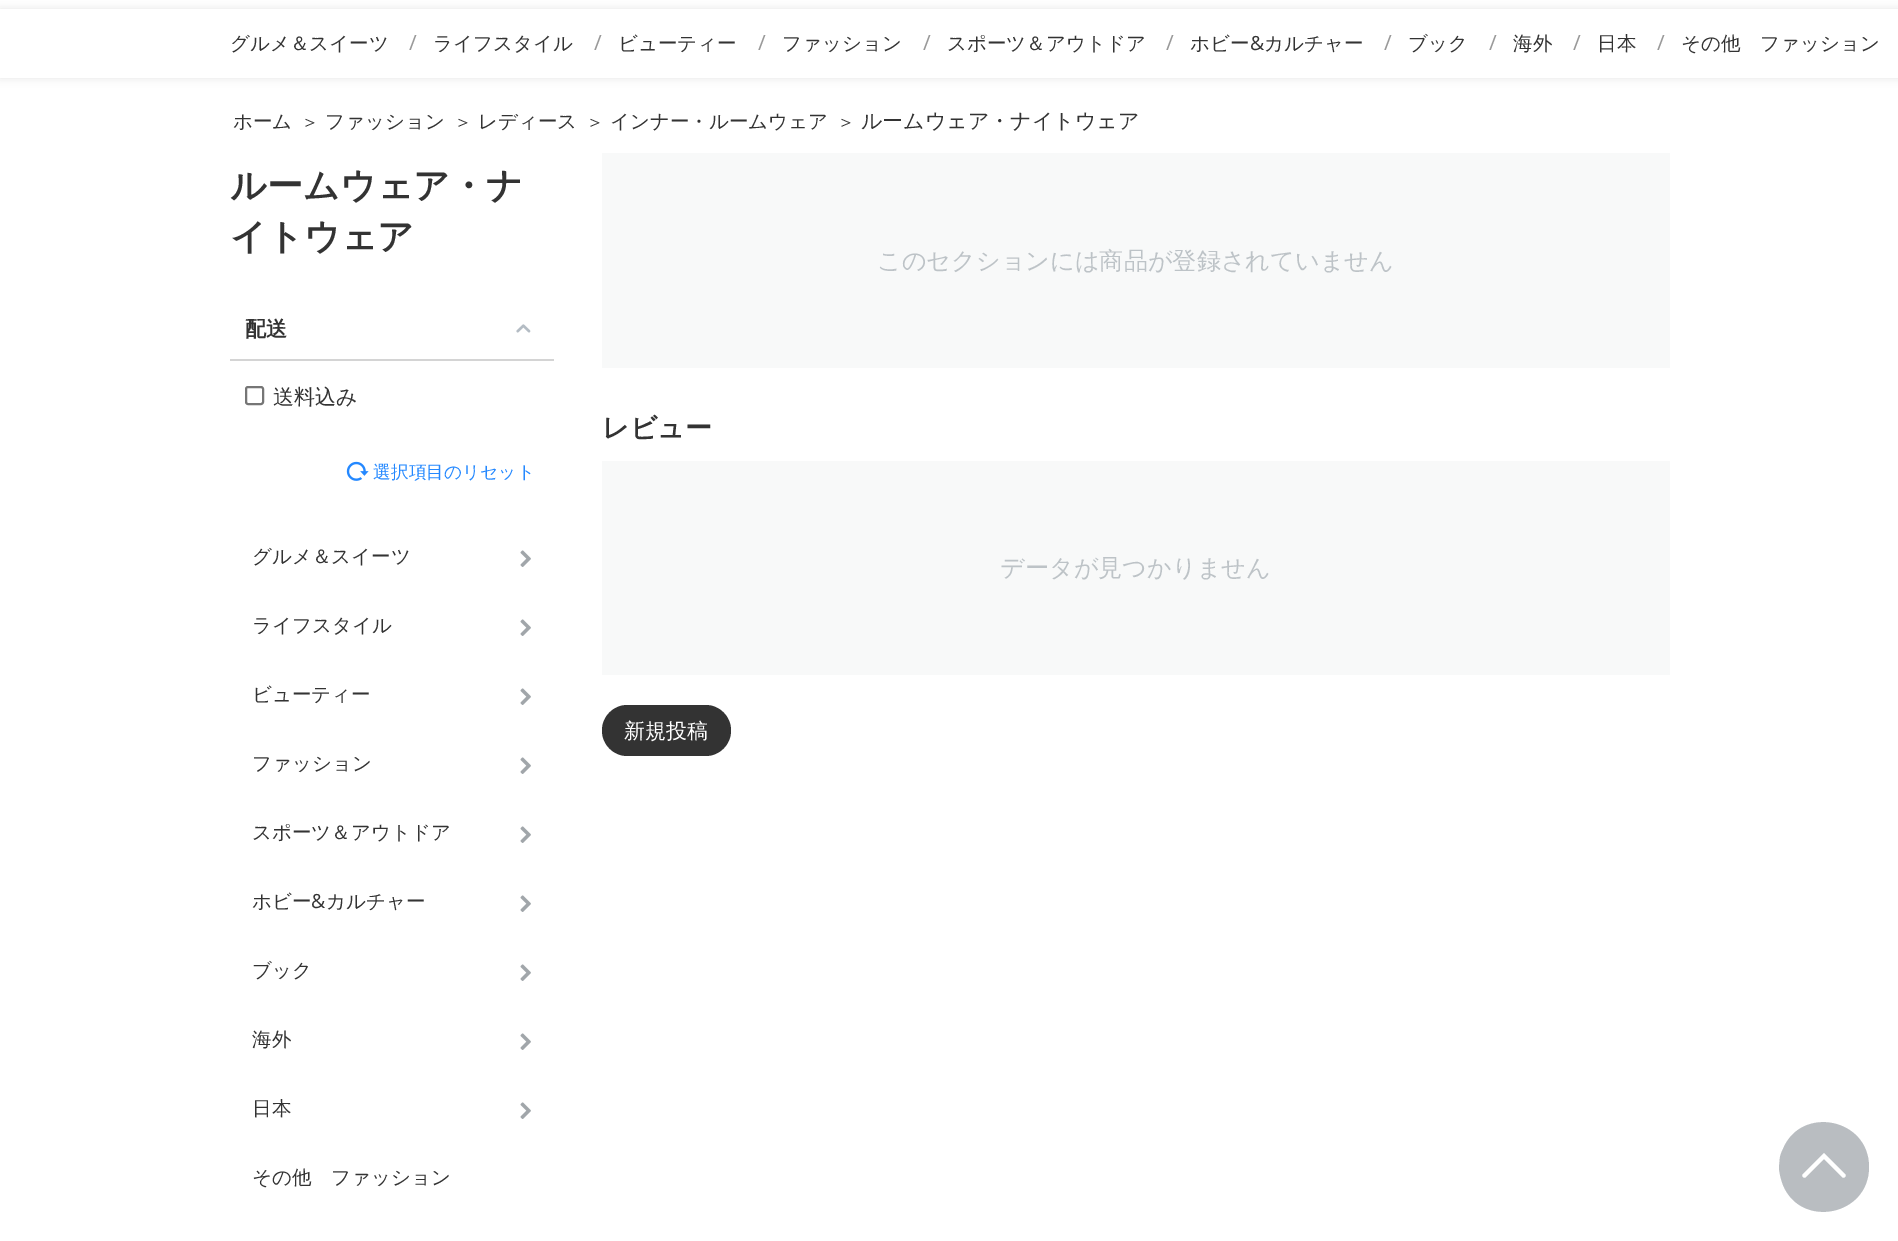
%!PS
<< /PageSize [1898 1241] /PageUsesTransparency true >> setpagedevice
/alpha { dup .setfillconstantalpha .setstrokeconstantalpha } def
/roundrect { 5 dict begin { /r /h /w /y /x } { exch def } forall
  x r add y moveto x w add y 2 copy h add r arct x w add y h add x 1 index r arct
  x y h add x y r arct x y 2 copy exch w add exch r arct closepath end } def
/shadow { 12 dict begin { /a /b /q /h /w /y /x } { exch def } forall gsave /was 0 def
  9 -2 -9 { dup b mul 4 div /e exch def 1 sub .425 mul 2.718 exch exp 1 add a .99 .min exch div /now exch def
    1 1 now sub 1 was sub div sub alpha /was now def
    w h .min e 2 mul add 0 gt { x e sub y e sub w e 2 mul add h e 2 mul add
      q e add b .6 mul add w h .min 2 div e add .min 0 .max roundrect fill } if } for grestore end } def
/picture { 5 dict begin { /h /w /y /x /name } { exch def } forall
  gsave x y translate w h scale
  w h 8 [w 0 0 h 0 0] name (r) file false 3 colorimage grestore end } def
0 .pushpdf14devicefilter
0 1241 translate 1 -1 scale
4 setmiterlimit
1 setgray
0 0 1898 1241 rectfill
gsave
newpath 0 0 moveto 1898 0 lineto 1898 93 lineto 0 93 lineto closepath 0 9 moveto 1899 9 lineto 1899 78 lineto 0 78 lineto closepath eoclip newpath
0 setgray
0 9 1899 69 0 4.5 0.1 shadow
grestore
/WenQuanYiZenHei-Medium [19.5 0 0 -19.5 0 0] selectfont
0.2 setgray
230 50 moveto (グルメ＆スイーツ) show
/OpenSans-Regular [21 0 0 -21 0 0] selectfont
0.6 setgray
409 50 moveto (/) show
/WenQuanYiZenHei-Medium [19.5 0 0 -19.5 0 0] selectfont
0.2 setgray
433 50 moveto (ライフスタイル) show
/OpenSans-Regular [21 0 0 -21 0 0] selectfont
0.6 setgray
594 50 moveto (/) show
/WenQuanYiZenHei-Medium [19.5 0 0 -19.5 0 0] selectfont
0.2 setgray
618 50 moveto (ビューティー) show
/OpenSans-Regular [21 0 0 -21 0 0] selectfont
0.6 setgray
758 50 moveto (/) show
/WenQuanYiZenHei-Medium [19.5 0 0 -19.5 0 0] selectfont
0.2 setgray
782 50 moveto (ファッション) show
/OpenSans-Regular [21 0 0 -21 0 0] selectfont
0.6 setgray
923 50 moveto (/) show
/WenQuanYiZenHei-Medium [19.5 0 0 -19.5 0 0] selectfont
0.2 setgray
947 50 moveto (スポーツ＆アウトドア) show
/OpenSans-Regular [21 0 0 -21 0 0] selectfont
0.6 setgray
1166 50 moveto (/) show
/WenQuanYiZenHei-Medium [19.5 0 0 -19.5 0 0] selectfont
0.2 setgray
1190 50 moveto (ホビー) show
/OpenSans-Regular [19.5 0 0 -19.5 0 0] selectfont
1250 50 moveto (&) show
/WenQuanYiZenHei-Medium [19.5 0 0 -19.5 0 0] selectfont
1264 50 moveto (カルチャー) show
/OpenSans-Regular [21 0 0 -21 0 0] selectfont
0.6 setgray
1384 50 moveto (/) show
/WenQuanYiZenHei-Medium [19.5 0 0 -19.5 0 0] selectfont
0.2 setgray
1408 50 moveto (ブック) show
/OpenSans-Regular [21 0 0 -21 0 0] selectfont
0.6 setgray
1489 50 moveto (/) show
/WenQuanYiZenHei-Medium [19.5 0 0 -19.5 0 0] selectfont
0.2 setgray
1513 50 moveto (海外) show
/OpenSans-Regular [21 0 0 -21 0 0] selectfont
0.6 setgray
1573 50 moveto (/) show
/WenQuanYiZenHei-Medium [19.5 0 0 -19.5 0 0] selectfont
0.2 setgray
1597 50 moveto (日本) show
/OpenSans-Regular [21 0 0 -21 0 0] selectfont
0.6 setgray
1657 50 moveto (/) show
/WenQuanYiZenHei-Medium [19.5 0 0 -19.5 0 0] selectfont
0.2 setgray
1681 50 moveto (その他　ファッション) show
233 128 moveto (ホーム) show
/WenQuanYiZenHei-Medium [18 0 0 -18 0 0] selectfont
301 128 moveto (＞) show
/WenQuanYiZenHei-Medium [19.5 0 0 -19.5 0 0] selectfont
325 128 moveto (ファッション) show
/WenQuanYiZenHei-Medium [18 0 0 -18 0 0] selectfont
454 128 moveto (＞) show
/WenQuanYiZenHei-Medium [19.5 0 0 -19.5 0 0] selectfont
478 128 moveto (レディース) show
/WenQuanYiZenHei-Medium [18 0 0 -18 0 0] selectfont
586 128 moveto (＞) show
/WenQuanYiZenHei-Medium [19.5 0 0 -19.5 0 0] selectfont
610 128 moveto (インナー・ルームウェア) show
/WenQuanYiZenHei-Medium [18 0 0 -18 0 0] selectfont
837 128 moveto (＞) show
/WenQuanYiZenHei-Medium [21 0 0 -21 0 0] selectfont
861 128 moveto (ルームウェア・ナイトウェア) show
/WenQuanYiZenHei-Bold [36 0 0 -36 0 0] selectfont
230 198 moveto (ルームウェア・ナ) show
230 249 moveto (イトウェア) show
0.831 setgray
230 359 324 2 rectfill
/WenQuanYiZenHei-Bold [21 0 0 -21 0 0] selectfont
0.2 setgray
245 336 moveto (配送) show
(img1.rgb) 516 324 15 9 picture
0.463 setgray
2 setlinewidth
246 387 17 17 2 roundrect stroke
/WenQuanYiZenHei-Medium [21 0 0 -21 0 0] selectfont
0.2 setgray
273 404 moveto (送料込み) show
(img2.rgb) 346 461 23 20 picture
/WenQuanYiZenHei-Medium [17.75 0 0 -17.75 0 0] selectfont
0.141 0.533 1 setrgbcolor
373 478 moveto (選択項目のリセット) show
/WenQuanYiZenHei-Medium [19.5 0 0 -19.5 0 0] selectfont
0.2 setgray
252 563 moveto (グルメ＆スイーツ) show
(img3.rgb) 520 550 11 17 picture
252 632 moveto (ライフスタイル) show
(img3.rgb) 520 619 11 17 picture
252 701 moveto (ビューティー) show
(img3.rgb) 520 688 11 17 picture
252 770 moveto (ファッション) show
(img3.rgb) 520 757 11 17 picture
252 839 moveto (スポーツ＆アウトドア) show
(img3.rgb) 520 826 11 17 picture
252 908 moveto (ホビー) show
/OpenSans-Regular [19.5 0 0 -19.5 0 0] selectfont
311 908 moveto (&) show
/WenQuanYiZenHei-Medium [19.5 0 0 -19.5 0 0] selectfont
326 908 moveto (カルチャー) show
(img3.rgb) 520 895 11 17 picture
252 977 moveto (ブック) show
(img3.rgb) 520 964 11 17 picture
252 1046 moveto (海外) show
(img3.rgb) 520 1033 11 17 picture
252 1115 moveto (日本) show
(img3.rgb) 520 1102 11 17 picture
252 1184 moveto (その他　ファッション) show
0.973 0.976 0.976 setrgbcolor
602 153 1068 215 rectfill
/WenQuanYiZenHei-Medium [24.15 0 0 -24.15 0 0] selectfont
0.741 0.765 0.78 setrgbcolor
877 269 moveto (このセクションには商品が登録されていません) show
/WenQuanYiZenHei-Bold [27 0 0 -27 0 0] selectfont
0.2 setgray
602 437 moveto (レビュー) show
0.973 0.976 0.976 setrgbcolor
602 461 1068 214 rectfill
/WenQuanYiZenHei-Medium [24.15 0 0 -24.15 0 0] selectfont
0.741 0.765 0.78 setrgbcolor
1000 576 moveto (データが見つかりません) show
0.2 setgray
602 705 129 51 25.5 roundrect fill
/WenQuanYiZenHei-Medium [21 0 0 -21 0 0] selectfont
1 setgray
624 738 moveto (新規投稿) show
0.725 0.741 0.757 setrgbcolor
newpath 1869 1167 moveto 1869 1216 1801 1229 1783 1185 curveto 1781 1180 1779 1172 1779 1167 curveto 1780 1159 1779 1157 1783 1149 curveto 1801 1105 1869 1118 1869 1167 curveto closepath fill
1 setgray
newpath 1842 1177 moveto 1824 1159 lineto 1806 1177 lineto 1805 1178 1804 1178 1803 1177 curveto 1802 1176 1802 1175 1803 1174 curveto 1824 1153 lineto 1845 1174 lineto 1846 1175 1846 1176 1845 1177 curveto 1844 1178 1843 1178 1842 1177 curveto fill
.poppdf14devicefilter showpage
